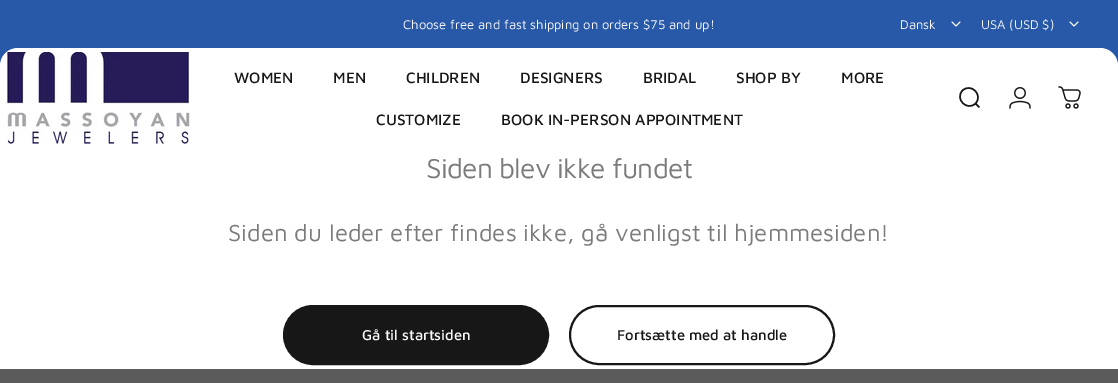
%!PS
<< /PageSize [1118 383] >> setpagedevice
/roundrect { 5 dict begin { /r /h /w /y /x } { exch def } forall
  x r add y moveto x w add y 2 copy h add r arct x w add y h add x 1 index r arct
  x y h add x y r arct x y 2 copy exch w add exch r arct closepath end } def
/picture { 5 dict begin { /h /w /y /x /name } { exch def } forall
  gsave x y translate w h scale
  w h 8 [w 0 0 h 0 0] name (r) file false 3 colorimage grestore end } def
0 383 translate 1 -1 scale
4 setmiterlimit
1 setgray
0 0 1118 383 rectfill
0.157 0.345 0.659 setrgbcolor
0 0 1118 18 rectfill
newpath 18 0 moveto 1100 0 lineto 1110 0 1118 8 1118 18 curveto 1118 66 lineto 0 66 lineto 0 18 lineto 0 8 8 0 18 0 curveto closepath fill
/MavenPro-Regular [13 0 0 -13 0 0] selectfont
0.98 setgray
403 29 moveto (Choose free and fast shipping on orders $75 and up!) show
900 29 moveto (Dansk) show
1 setlinecap
1 setlinejoin
newpath 952 22 moveto 956 26 lineto 960 22 lineto stroke
981 29 moveto (USA \(USD $\)) show
newpath 1070 22 moveto 1074 26 lineto 1078 22 lineto stroke
1 setgray
newpath 18 48 moveto 1100 48 lineto 1110 48 1118 56 1118 66 curveto 1118 149 lineto 0 149 lineto 0 66 lineto 0 56 8 48 18 48 curveto closepath fill
(img1.rgb) 6 52 184 93 picture
/MavenPro-Medium [15.5 0 0 -15.5 0 0] selectfont
0.09 setgray
234 83 moveto (WOMEN) show
333 83 moveto (MEN) show
406 83 moveto (CHILDREN) show
520 83 moveto (DESIGNERS) show
643 83 moveto (BRIDAL) show
736 83 moveto (SHOP BY) show
841 83 moveto (MORE) show
376 125 moveto (CUSTOMIZE) show
501 125 moveto (BOOK IN-PERSON APPOINTMENT) show
1.5 setlinewidth
0 setlinejoin
newpath 979 107 moveto 975.5 103.5 lineto 975.5 103.5 moveto 983.5 95 971 82.5 962.5 90.5 curveto 954.5 99 967 111.5 975.5 103.5 curveto closepath stroke
(img2.rgb) 1009 87 22 22 picture
(img3.rgb) 1058 86 23 23 picture
/MavenPro-Regular [28.25 0 0 -28.25 0 0] selectfont
0.482 setgray
426 178 moveto -0.85 0 (Siden blev ikke fundet) ashow
/MavenPro-Regular [24 0 0 -24 0 0] selectfont
228 241 moveto (Siden du leder efter findes ikke, gå venligst til hjemmesiden!) show
0.09 setgray
284 306 264 58 29 roundrect gsave fill grestore
2 setlinewidth
0 setlinecap
stroke
/MavenPro-Medium [14.75 0 0 -14.75 0 0] selectfont
0.98 setgray
362 340 moveto (Gå til startsiden) show
0.09 setgray
570 306 264 58 29 roundrect stroke
617 340 moveto (Fortsætte med at handle) show
0.357 setgray
0 369 1118 14 rectfill
showpage
